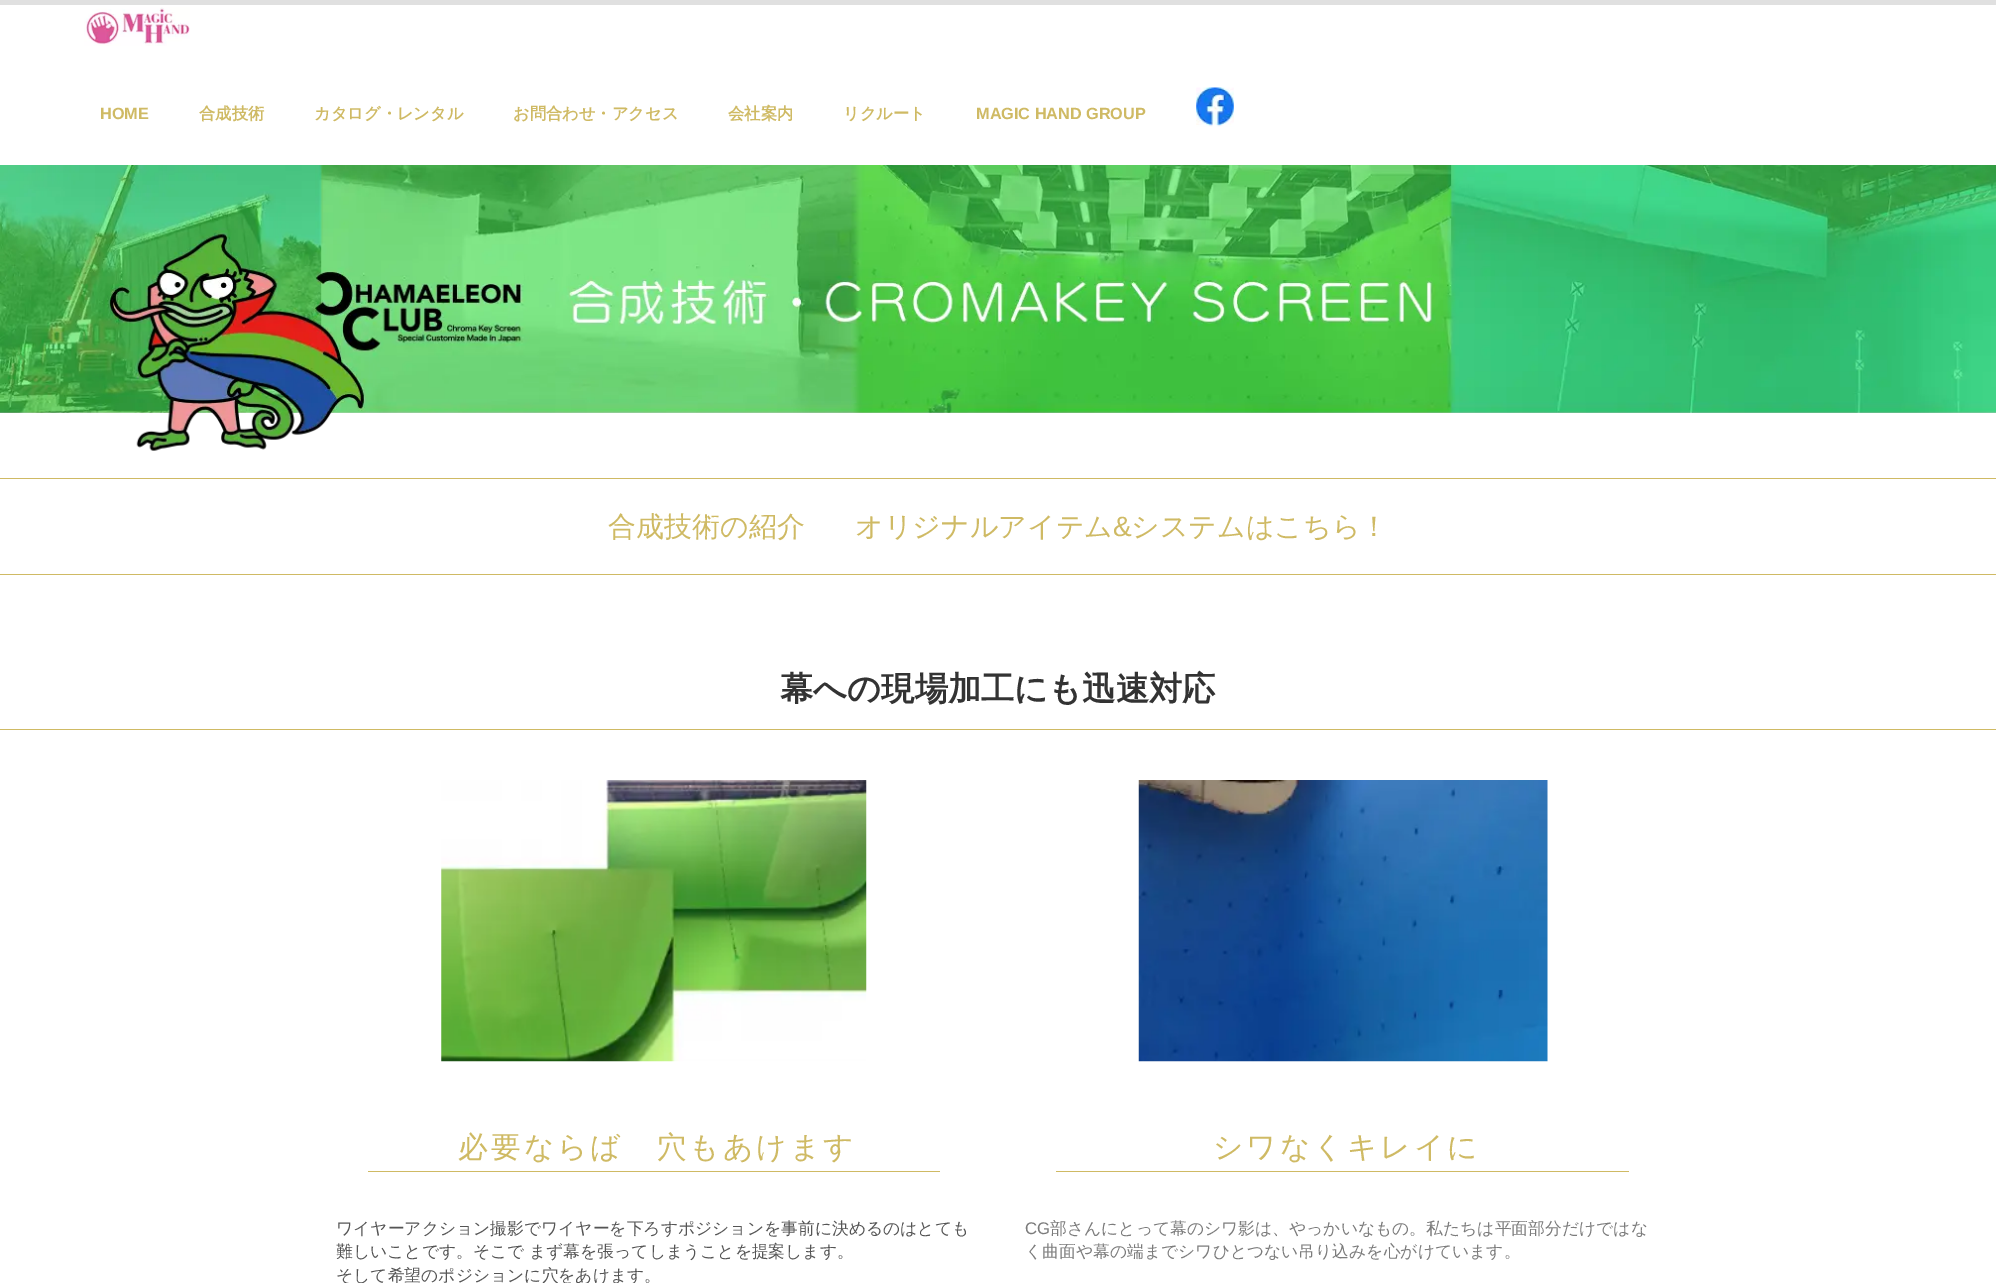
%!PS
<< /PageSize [1996 1283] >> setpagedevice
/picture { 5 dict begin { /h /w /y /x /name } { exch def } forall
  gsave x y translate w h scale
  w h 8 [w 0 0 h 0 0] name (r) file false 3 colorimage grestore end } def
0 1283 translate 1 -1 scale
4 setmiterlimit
1 setgray
0 0 1996 1283 rectfill
0.878 setgray
0 0 1996 5 rectfill
(img1.rgb) 84 7 106 39 picture
/LiberationSans-Bold [16.25 0 0 -16.25 0 0] selectfont
0.812 0.729 0.392 setrgbcolor
100 119 moveto (HOME) show
/WenQuanYiZenHei-Bold [16.25 0 0 -16.25 0 0] selectfont
199 119 moveto (合成技術) show
314 119 moveto (カタログ・レンタル) show
513 119 moveto (お問合わせ・アクセス) show
728 119 moveto (会社案内) show
843 119 moveto (リクルート) show
/LiberationSans-Bold [16.25 0 0 -16.25 0 0] selectfont
976 119 moveto (MAGIC HAND GROUP) show
(img2.rgb) 1196 87 38 40 picture
(img3.rgb) 0 165 1996 286 picture
0 478 1996 1 rectfill
/WenQuanYiZenHei-Medium [28 0 0 -28 0 0] selectfont
608 536 moveto (合成技術の紹介) show
855 536 moveto (オリジナルアイテム) show
/LiberationSans-Regular [28 0 0 -28 0 0] selectfont
1113 536 moveto (&) show
/WenQuanYiZenHei-Medium [28 0 0 -28 0 0] selectfont
1131 536 moveto (システムはこちら！) show
0 574 1996 1 rectfill
/WenQuanYiZenHei-Bold [33.25 0 0 -33.25 0 0] selectfont
0.2 setgray
780 700 moveto (幕への現場加工にも迅速対応) show
0.812 0.729 0.392 setrgbcolor
0 729 1996 1 rectfill
(img4.rgb) 441 780 426 282 picture
368 1171 572 1 rectfill
/WenQuanYiZenHei-Medium [29.75 0 0 -29.75 0 0] selectfont
458 1157 moveto 3 0 (必要ならば　穴もあけます) ashow
/WenQuanYiZenHei-Medium [16.8 0 0 -16.8 0 0] selectfont
0.333 setgray
336 1234 moveto (ワイヤーアクション撮影でワイヤーを下ろすポジションを事前に決めるのはとても) show
336 1257 moveto (難しいことです。そこで) show
529 1257 moveto (まず幕を張ってしまうことを提案します。) show
336 1281 moveto (そして希望のポジションに穴をあけます。) show
(img5.rgb) 1138 780 410 282 picture
0.812 0.729 0.392 setrgbcolor
1056 1171 573 1 rectfill
/WenQuanYiZenHei-Medium [29.75 0 0 -29.75 0 0] selectfont
1213 1157 moveto 3 0 (シワなくキレイに) ashow
/LiberationSans-Regular [16.8 0 0 -16.8 0 0] selectfont
0.486 setgray
1025 1234 moveto (CG) show
/WenQuanYiZenHei-Medium [16.8 0 0 -16.8 0 0] selectfont
1050 1234 moveto (部さんにとって幕のシワ影は、やっかいなもの。私たちは平面部分だけではな) show
1025 1257 moveto (く曲面や幕の端までシワひとつない吊り込みを心がけています。) show
showpage
